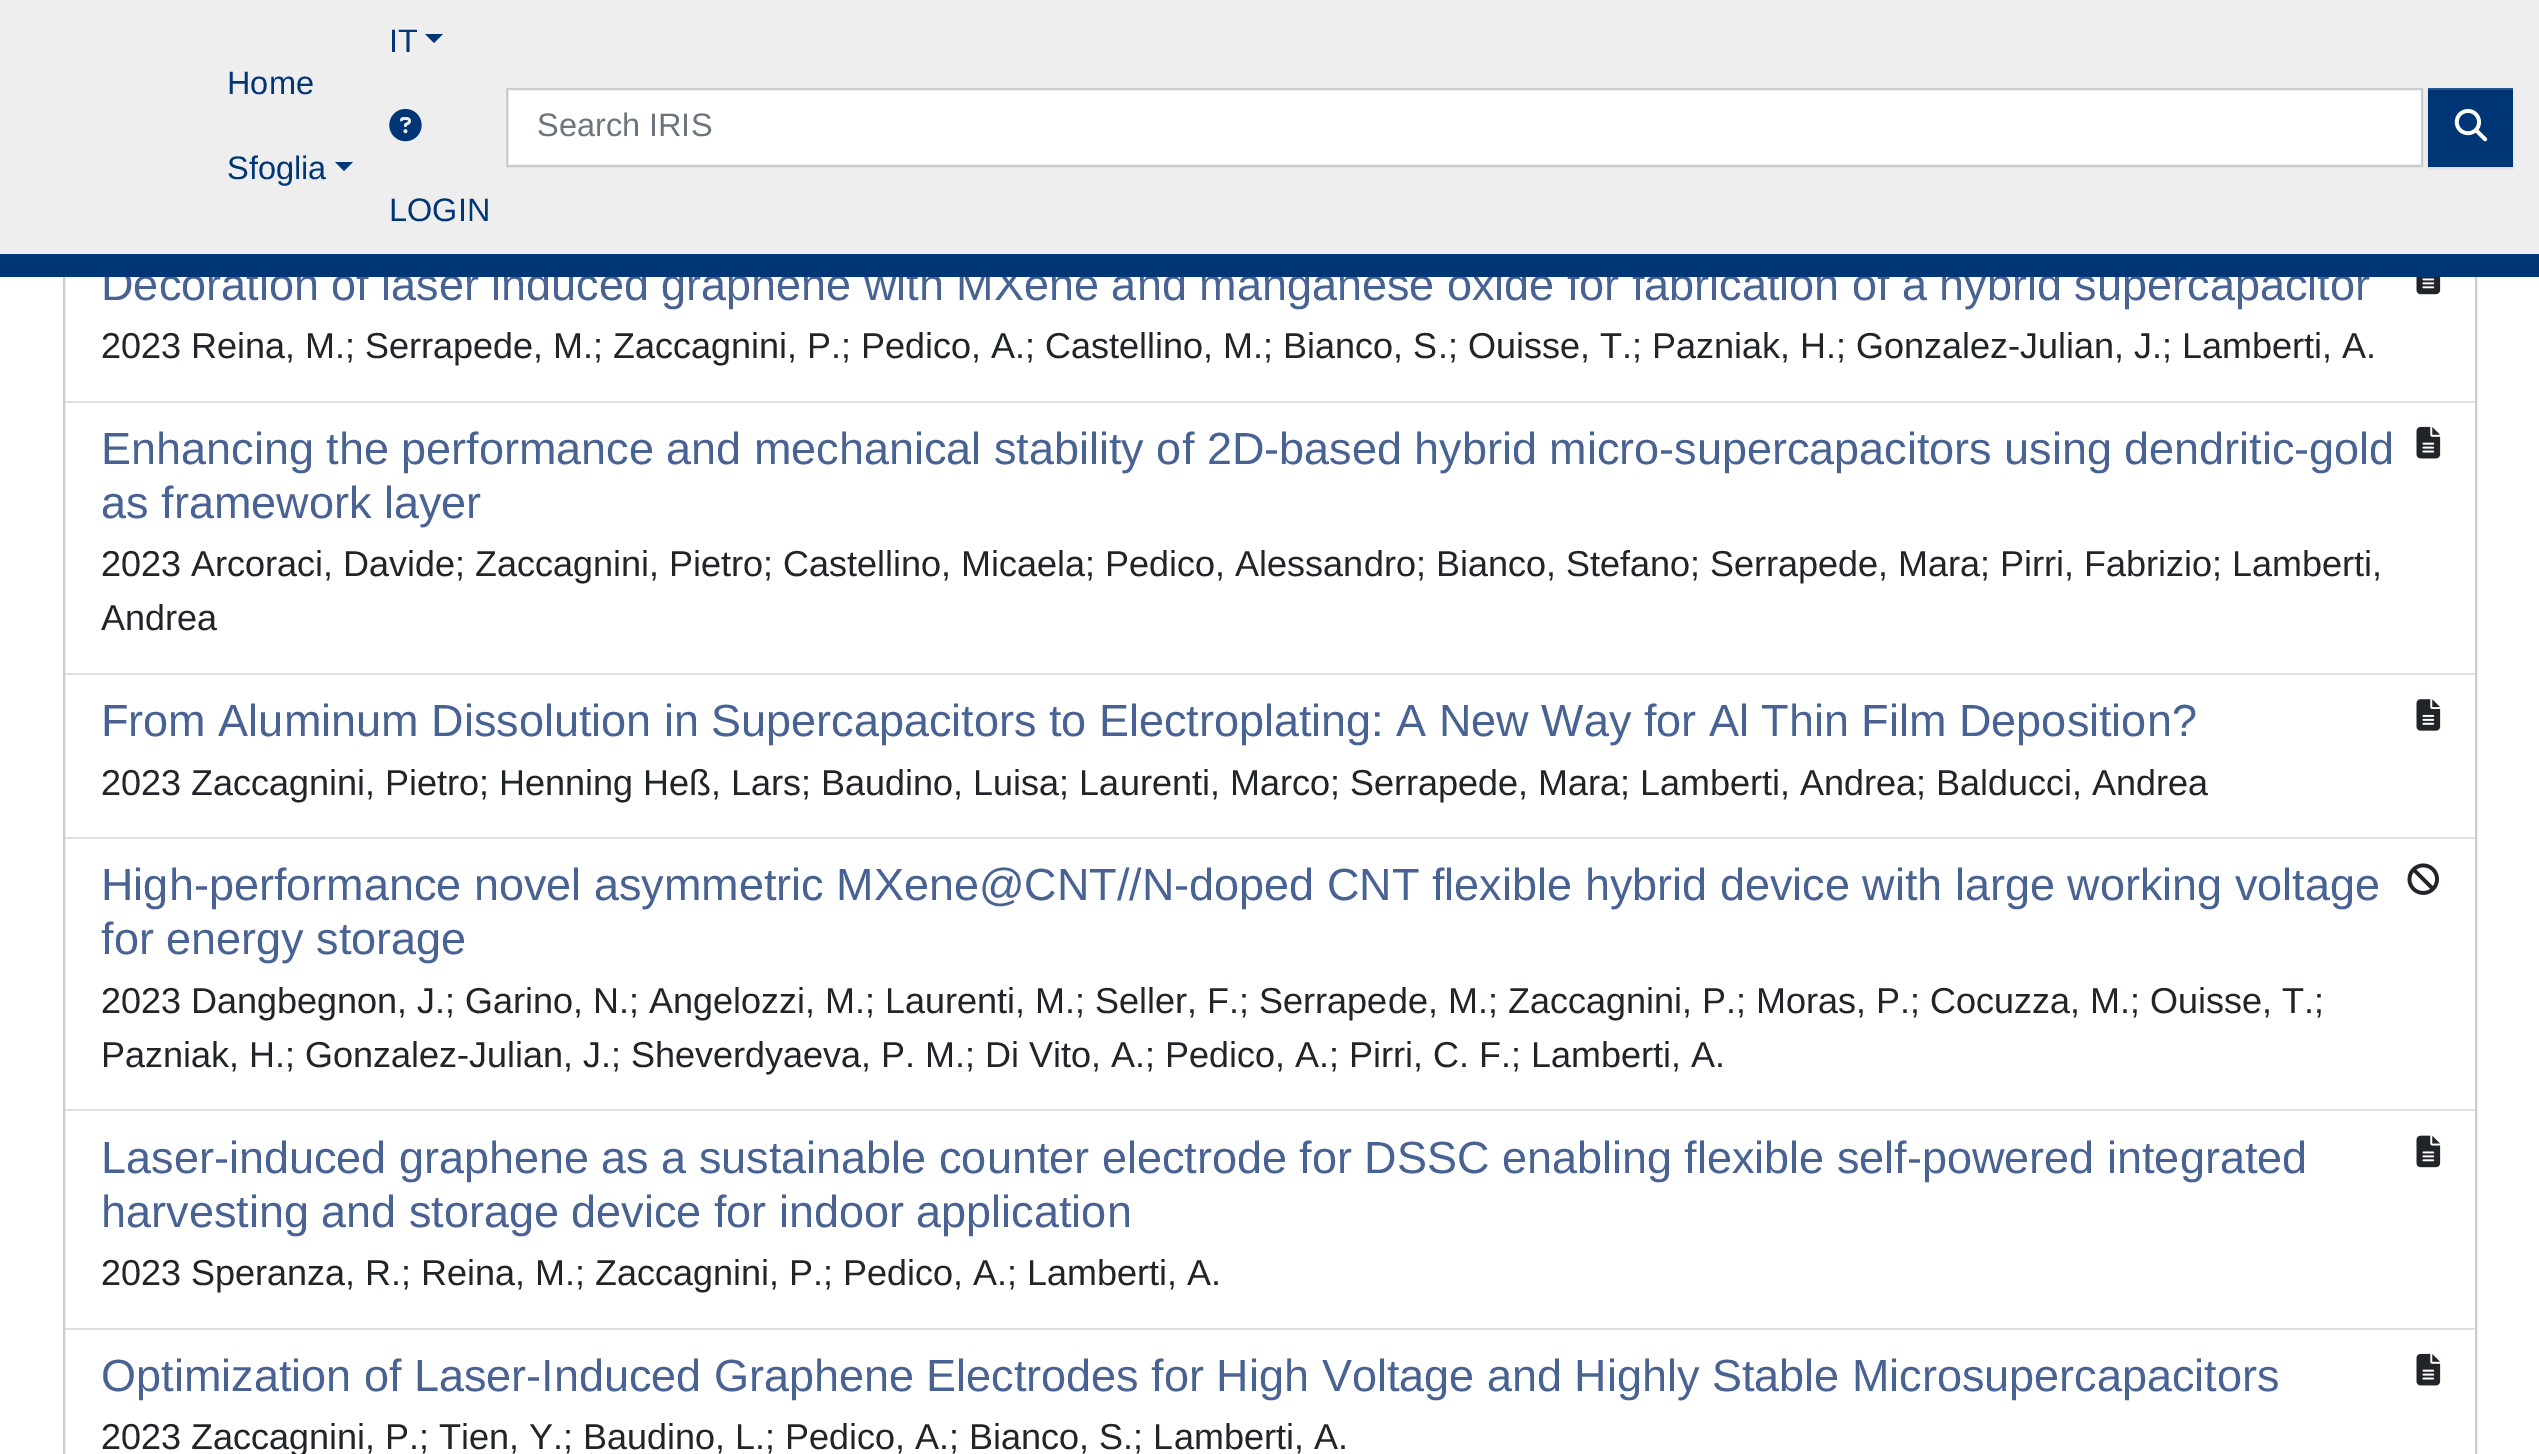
%!PS
<< /PageSize [2539 1454] /PageUsesTransparency true >> setpagedevice
/alpha { dup .setfillconstantalpha .setstrokeconstantalpha } def
/roundrect { 5 dict begin { /r /h /w /y /x } { exch def } forall
  x r add y moveto x w add y 2 copy h add r arct x w add y h add x 1 index r arct
  x y h add x y r arct x y 2 copy exch w add exch r arct closepath end } def
/shadow { 12 dict begin { /a /b /q /h /w /y /x } { exch def } forall gsave /was 0 def
  9 -2 -9 { dup b mul 4 div /e exch def 1 sub .425 mul 2.718 exch exp 1 add a .99 .min exch div /now exch def
    1 1 now sub 1 was sub div sub alpha /was now def
    w h .min e 2 mul add 0 gt { x e sub y e sub w e 2 mul add h e 2 mul add
      q e add b .6 mul add w h .min 2 div e add .min 0 .max roundrect fill } if } for grestore end } def
/picture { 5 dict begin { /h /w /y /x /name } { exch def } forall
  gsave x y translate w h scale
  w h 8 [w 0 0 h 0 0] name (r) file false 3 colorimage grestore end } def
0 .pushpdf14devicefilter
0 1454 translate 1 -1 scale
4 setmiterlimit
1 setgray
0 0 2539 1454 rectfill
0.8 setgray
2 setlinewidth
64 -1 2412 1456 rectstroke
0.933 setgray
0 0 2539 254 rectfill
/LiberationSans-Regular [45 0 0 -45 0 0] selectfont
0.282 0.384 0.576 setrgbcolor
101 300 moveto (Decoration of laser induced graphene with MXene and manganese oxide for fabrication of a hybrid supercapacitor) show
0 0.208 0.463 setrgbcolor
0 254 2539 23 rectfill
/LiberationSans-Regular [32.5 0 0 -32.5 0 0] selectfont
227 94 moveto (Home) show
227 179 moveto (Sfoglia) show
newpath 335 162 moveto 353 162 lineto 344 171 lineto closepath fill
389 52 moveto (IT) show
newpath 425 34 moveto 443 34 lineto 434 43 lineto closepath fill
(img1.rgb) 389 108 33 34 picture
389 221 moveto (LOGIN) show
1 setgray
509 90 1912 74 rectfill
0.8 setgray
507 89 1915 77 rectstroke
0.424 0.459 0.49 setrgbcolor
537 136 moveto (Search IRIS) show
0 setgray
2428 90 85 79 0 1 0.07 shadow
0 0.208 0.463 setrgbcolor
2428 90 85 77 rectfill
0.149 0.325 0.545 setrgbcolor
2428 88 85 2 rectfill
(img2.rgb) 2454 108 34 34 picture
0.875 setgray
65 401 2410 2 rectfill
(img3.rgb) 2416 277 25 18 picture
/LiberationSans-Regular [36 0 0 -36 0 0] selectfont
0.129 0.145 0.161 setrgbcolor
101 358 moveto (2023 Reina, M.; Serrapede, M.; Zaccagnini, P.; Pedico, A.; Castellino, M.; Bianco, S.; Ouisse, T.; Pazniak, H.; Gonzalez-Julian, J.; Lamberti, A.) show
0.875 setgray
65 673 2410 2 rectfill
/LiberationSans-Regular [45 0 0 -45 0 0] selectfont
0.282 0.384 0.576 setrgbcolor
101 464 moveto (Enhancing the performance and mechanical stability of 2D-based hybrid micro-supercapacitors using dendritic-gold) show
101 518 moveto (as framework layer) show
(img4.rgb) 2416 426 25 33 picture
/LiberationSans-Regular [36 0 0 -36 0 0] selectfont
0.129 0.145 0.161 setrgbcolor
101 576 moveto (2023 Arcoraci, Davide; Zaccagnini, Pietro; Castellino, Micaela; Pedico, Alessandro; Bianco, Stefano; Serrapede, Mara; Pirri, Fabrizio; Lamberti,) show
101 630 moveto (Andrea) show
0.875 setgray
65 837 2410 2 rectfill
/LiberationSans-Regular [45 0 0 -45 0 0] selectfont
0.282 0.384 0.576 setrgbcolor
101 736 moveto (From Aluminum Dissolution in Supercapacitors to Electroplating: A New Way for Al Thin Film Deposition?) show
(img5.rgb) 2416 699 25 32 picture
/LiberationSans-Regular [36 0 0 -36 0 0] selectfont
0.129 0.145 0.161 setrgbcolor
101 795 moveto (2023 Zaccagnini, Pietro; Henning Heß, Lars; Baudino, Luisa; Laurenti, Marco; Serrapede, Mara; Lamberti, Andrea; Balducci, Andrea) show
0.875 setgray
65 1109 2410 2 rectfill
/LiberationSans-Regular [45 0 0 -45 0 0] selectfont
0.282 0.384 0.576 setrgbcolor
101 900 moveto (High-performance novel asymmetric MXene@CNT//N-doped CNT flexible hybrid device with large working voltage) show
101 954 moveto (for energy storage) show
(img6.rgb) 2407 863 32 32 picture
/LiberationSans-Regular [36 0 0 -36 0 0] selectfont
0.129 0.145 0.161 setrgbcolor
101 1013 moveto (2023 Dangbegnon, J.; Garino, N.; Angelozzi, M.; Laurenti, M.; Seller, F.; Serrapede, M.; Zaccagnini, P.; Moras, P.; Cocuzza, M.; Ouisse, T.;) show
101 1067 moveto (Pazniak, H.; Gonzalez-Julian, J.; Sheverdyaeva, P. M.; Di Vito, A.; Pedico, A.; Pirri, C. F.; Lamberti, A.) show
0.875 setgray
65 1328 2410 2 rectfill
/LiberationSans-Regular [45 0 0 -45 0 0] selectfont
0.282 0.384 0.576 setrgbcolor
101 1173 moveto (Laser-induced graphene as a sustainable counter electrode for DSSC enabling flexible self-powered integrated) show
101 1227 moveto (harvesting and storage device for indoor application) show
(img7.rgb) 2416 1135 25 33 picture
/LiberationSans-Regular [36 0 0 -36 0 0] selectfont
0.129 0.145 0.161 setrgbcolor
101 1285 moveto (2023 Speranza, R.; Reina, M.; Zaccagnini, P.; Pedico, A.; Lamberti, A.) show
/LiberationSans-Regular [45 0 0 -45 0 0] selectfont
0.282 0.384 0.576 setrgbcolor
101 1391 moveto (Optimization of Laser-Induced Graphene Electrodes for High Voltage and Highly Stable Microsupercapacitors) show
(img4.rgb) 2416 1353 25 33 picture
/LiberationSans-Regular [36 0 0 -36 0 0] selectfont
0.129 0.145 0.161 setrgbcolor
101 1449 moveto (2023 Zaccagnini, P.; Tien, Y.; Baudino, L.; Pedico, A.; Bianco, S.; Lamberti, A.) show
.poppdf14devicefilter showpage
